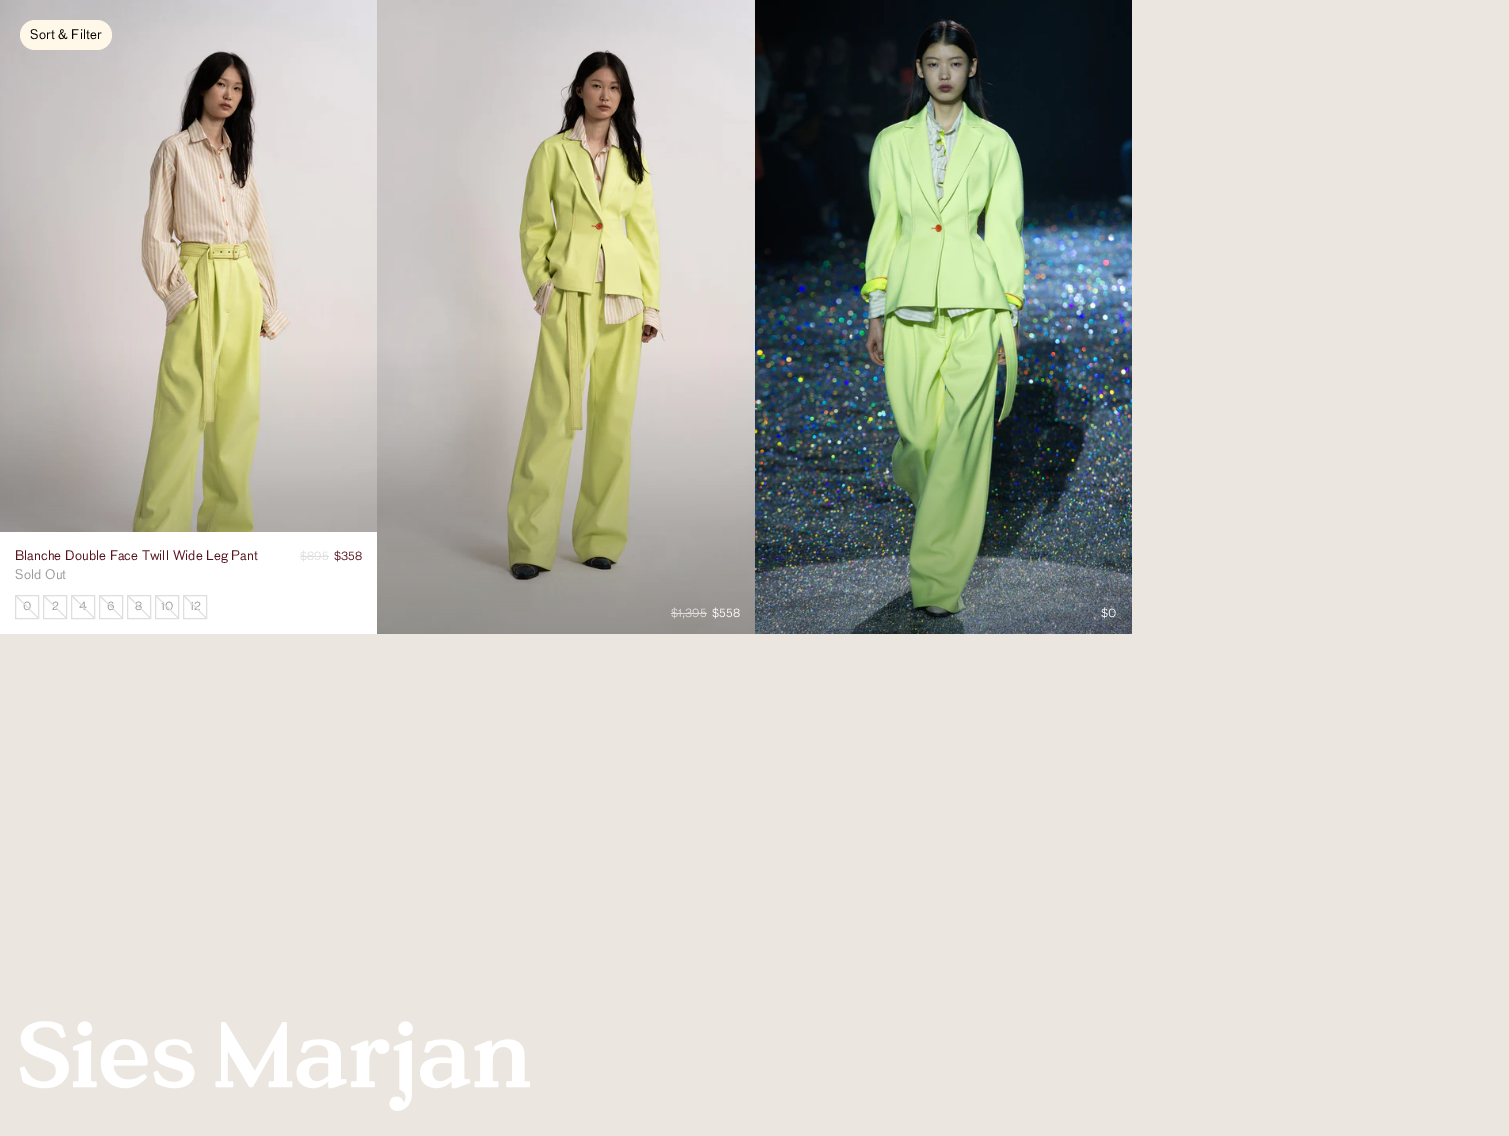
%!PS
<< /PageSize [1509 1136] >> setpagedevice
/roundrect { 5 dict begin { /r /h /w /y /x } { exch def } forall
  x r add y moveto x w add y 2 copy h add r arct x w add y h add x 1 index r arct
  x y h add x y r arct x y 2 copy exch w add exch r arct closepath end } def
/picture { 5 dict begin { /h /w /y /x /name } { exch def } forall
  gsave x y translate w h scale
  w h 8 [w 0 0 h 0 0] name (r) file false 3 colorimage grestore end } def
0 1136 translate 1 -1 scale
4 setmiterlimit
0.922 0.906 0.878 setrgbcolor
0 0 1509 1136 rectfill
(img1.rgb) 0 0 377 532 picture
1 0.973 0.914 setrgbcolor
20 20 92 30 15 roundrect fill
/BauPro-Regular [13 0 0 -13 0 0] selectfont
0 setgray
30 39 moveto (Sort & Filter) show
1 setgray
0 532 377 102 rectfill
0.337 0.071 0.106 setrgbcolor
15 560 moveto (Blanche Double Face Twill Wide Leg Pant) show
0.6 setgray
15 579 moveto (Sold Out) show
/BauPro-Regular [11 0 0 -11 0 0] selectfont
0.871 setgray
300 560 moveto ($895) show
300 556 29 1 rectfill
0.337 0.071 0.106 setrgbcolor
334 560 moveto ($358) show
0.871 setgray
15.5 595.5 23 23 rectstroke
0.6 setgray
23 610 moveto (0) show
gsave
16 596 22 22 rectclip
0.871 setgray
newpath 15.5 594.5 moveto 39.5 618.5 lineto 38.5 619 lineto 14.5 595 lineto closepath fill
grestore
0.871 setgray
43.5 595.5 23 23 rectstroke
0.6 setgray
52 610 moveto (2) show
gsave
44 596 22 22 rectclip
0.871 setgray
newpath 43.5 594.5 moveto 67.5 618.5 lineto 66.5 619 lineto 42.5 595 lineto closepath fill
grestore
0.871 setgray
71.5 595.5 23 23 rectstroke
0.6 setgray
79 610 moveto (4) show
gsave
72 596 22 22 rectclip
0.871 setgray
newpath 71.5 594.5 moveto 95.5 618.5 lineto 94.5 619 lineto 70.5 595 lineto closepath fill
grestore
0.871 setgray
99.5 595.5 23 23 rectstroke
0.6 setgray
107 610 moveto (6) show
gsave
100 596 22 22 rectclip
0.871 setgray
newpath 99.5 594.5 moveto 123.5 618.5 lineto 122.5 619 lineto 98.5 595 lineto closepath fill
grestore
0.871 setgray
127.5 595.5 23 23 rectstroke
0.6 setgray
135 610 moveto (8) show
gsave
128 596 22 22 rectclip
0.871 setgray
newpath 127.5 594.5 moveto 151.5 618.5 lineto 150.5 619 lineto 126.5 595 lineto closepath fill
grestore
0.871 setgray
155.5 595.5 23 23 rectstroke
0.6 setgray
161 610 moveto (10) show
gsave
156 596 22 22 rectclip
0.871 setgray
newpath 155.5 594.5 moveto 179.5 618.5 lineto 178.5 619 lineto 154.5 595 lineto closepath fill
grestore
0.871 setgray
183.5 595.5 23 23 rectstroke
0.6 setgray
190 610 moveto (12) show
gsave
184 596 22 22 rectclip
0.871 setgray
newpath 183.5 594.5 moveto 207.5 618.5 lineto 206.5 619 lineto 182.5 595 lineto closepath fill
grestore
(img2.rgb) 377 0 378 634 picture
0.871 setgray
671 617 moveto ($1,395) show
671 613 36 1 rectfill
1 setgray
712 617 moveto ($558) show
(img3.rgb) 755 0 377 634 picture
1101 617 moveto ($0) show
(img4.rgb) 20 1021 510 90 picture
showpage
